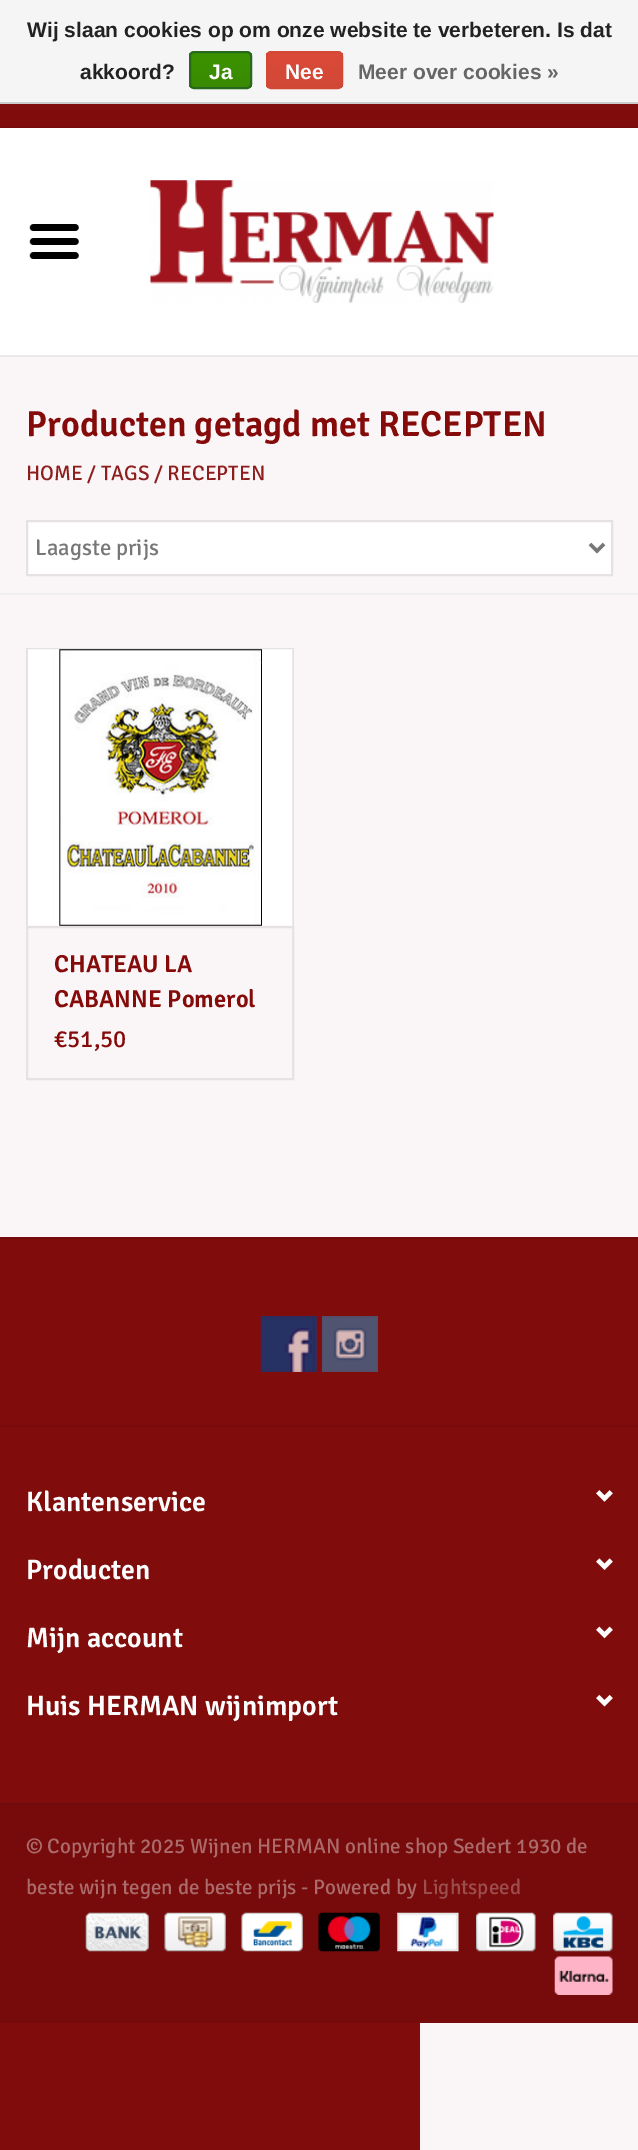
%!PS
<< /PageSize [638 2150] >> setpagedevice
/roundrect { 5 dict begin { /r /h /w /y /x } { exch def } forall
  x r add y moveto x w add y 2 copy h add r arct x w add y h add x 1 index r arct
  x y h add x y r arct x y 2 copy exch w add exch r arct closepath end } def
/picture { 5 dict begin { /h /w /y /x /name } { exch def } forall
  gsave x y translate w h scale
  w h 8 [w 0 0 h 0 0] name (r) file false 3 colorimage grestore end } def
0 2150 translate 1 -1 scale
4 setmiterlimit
0.98 0.961 0.965 setrgbcolor
0 0 638 2150 rectfill
0.961 setgray
0 0 638 102 rectfill
0.8 setgray
0 102 638 2 rectfill
/LiberationSans-Bold [21 0 0 -21 0 0] selectfont
0.133 setgray
27 37 moveto (Wij slaan cookies op om onze website te verbeteren. Is dat) show
80 79 moveto (akkoord?) show
gsave
189 51 63 38 5 roundrect clip newpath
gsave newpath 189 53 moveto 252 53 lineto 252 88 lineto 189 88 lineto closepath clip newpath
<< /ShadingType 2 /ColorSpace /DeviceRGB /Coords [221 53 221 88] /Extend [true true] /Function << /FunctionType 2 /Domain [0 1] /C0 [0.235 0.576 0] /C1 [0.224 0.541 0] /N 1 >> >> shfill grestore
grestore
0.161 0.412 0.114 setrgbcolor
2 setlinewidth
190 52 61 36 4 roundrect stroke
0.988 setgray
209 79 moveto (Ja) show
gsave
266 51 77 38 5 roundrect clip newpath
gsave newpath 266 53 moveto 343 53 lineto 343 88 lineto 266 88 lineto closepath clip newpath
<< /ShadingType 2 /ColorSpace /DeviceRGB /Coords [305 53 305 88] /Extend [true true] /Function << /FunctionType 2 /Domain [0 1] /C0 [0.863 0.29 0.22] /C1 [0.82 0.282 0.212] /N 1 >> >> shfill grestore
grestore
0.82 0.282 0.212 setrgbcolor
267 52 75 36 4 roundrect stroke
0.988 setgray
285 79 moveto (Nee) show
0.4 setgray
358 79 moveto (Meer over cookies ») show
0.502 0.047 0.047 setrgbcolor
0 104 638 22 rectfill
0.467 0.043 0.043 setrgbcolor
0 126 638 2 rectfill
1 setgray
0 128 638 227 rectfill
0.918 setgray
0 355 638 2 rectfill
(img1.rgb) 150 180 344 123 picture
(img2.rgb) 29 224 50 35 picture
0.502 0.047 0.047 setrgbcolor
0 2023 420 127 rectfill
/Signika-SemiBold [36.1 0 0 -36.1 0 0] selectfont
0.522 0.039 0.039 setrgbcolor
26 436 moveto (Producten getagd met RECEPTEN) show
/Signika-Regular [21 0 0 -21 0 0] selectfont
0.557 0.114 0.114 setrgbcolor
26 480 moveto (HOME / TAGS / RECEPTEN) show
0.941 setgray
0 593 638 2 rectfill
1 setgray
newpath 27 521 moveto 612 521 lineto 612 575 lineto 27 575 lineto closepath gsave fill grestore
0.902 0.882 0.886 setrgbcolor
stroke
0.467 setgray
3.5 setlinewidth
newpath 590 544 moveto 597 551 lineto 604 544 lineto stroke
/Signika-Regular [22.75 0 0 -22.75 0 0] selectfont
35 555 moveto (Laagste prijs) show
0.902 0.882 0.886 setrgbcolor
26 648 268 2 rectfill
292 648 2 278 rectfill
26 648 2 278 rectfill
(img3.rgb) 28 649 265 277 picture
2 setlinewidth
27 927 266 152 rectstroke
/Signika-SemiBold [24.5 0 0 -24.5 0 0] selectfont
0.522 0.039 0.039 setrgbcolor
54 972 moveto (CHATEAU LA) show
54 1007 moveto (CABANNE Pomerol) show
/Signika-Regular [24.5 0 0 -24.5 0 0] selectfont
54 1047 moveto (€51,50) show
0.502 0.047 0.047 setrgbcolor
0 1239 638 564 rectfill
0.459 0.043 0.043 setrgbcolor
0 1237 638 2 rectfill
(img4.rgb) 260 1316 57 56 picture
(img5.rgb) 322 1316 56 56 picture
0 1425 638 2 rectfill
/Signika-SemiBold [28 0 0 -28 0 0] selectfont
0.988 setgray
26 1511 moveto (Klantenservice) show
(img6.rgb) 596 1490 17 12 picture
26 1579 moveto (Producten) show
(img7.rgb) 596 1558 17 12 picture
26 1647 moveto (Mijn account) show
(img8.rgb) 596 1626 17 13 picture
26 1715 moveto (Huis HERMAN wijnimport) show
(img9.rgb) 596 1694 17 13 picture
0.427 0.039 0.039 setrgbcolor
0 1803 638 2 rectfill
0.467 0.043 0.043 setrgbcolor
0 1805 638 218 rectfill
/Signika-Regular [21 0 0 -21 0 0] selectfont
0.675 0.42 0.42 setrgbcolor
26 1853 moveto (© Copyright 2025 Wijnen HERMAN online shop Sedert 1930 de) show
26 1894 moveto (beste wijn tegen de beste prijs - Powered by) show
0.612 0.306 0.306 setrgbcolor
422 1894 moveto (Lightspeed) show
(img10.rgb) 85 1912 64 40 picture
(img11.rgb) 164 1912 62 40 picture
(img12.rgb) 241 1912 62 40 picture
(img13.rgb) 318 1912 62 40 picture
(img14.rgb) 397 1912 62 40 picture
(img15.rgb) 476 1912 60 40 picture
(img16.rgb) 553 1912 60 40 picture
(img17.rgb) 554 1956 59 39 picture
showpage
